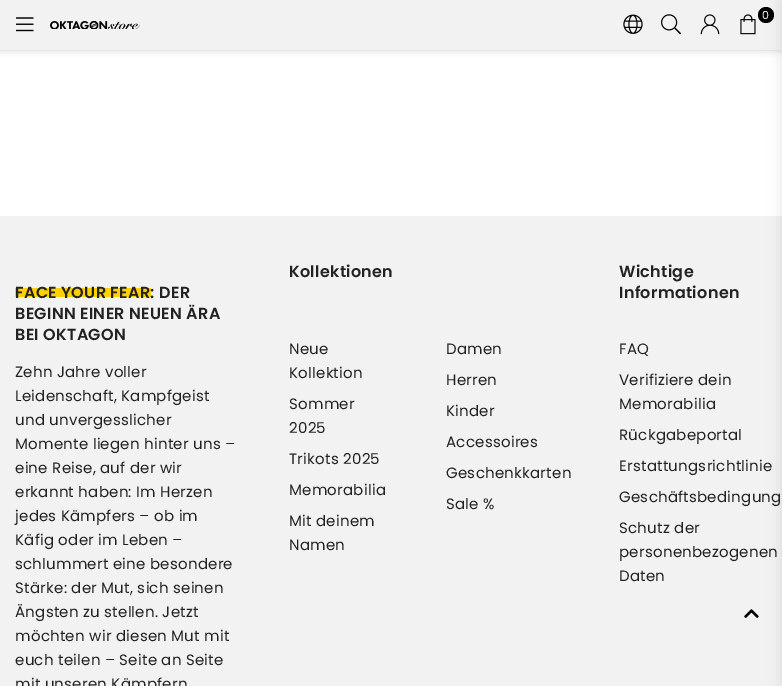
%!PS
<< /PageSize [782 686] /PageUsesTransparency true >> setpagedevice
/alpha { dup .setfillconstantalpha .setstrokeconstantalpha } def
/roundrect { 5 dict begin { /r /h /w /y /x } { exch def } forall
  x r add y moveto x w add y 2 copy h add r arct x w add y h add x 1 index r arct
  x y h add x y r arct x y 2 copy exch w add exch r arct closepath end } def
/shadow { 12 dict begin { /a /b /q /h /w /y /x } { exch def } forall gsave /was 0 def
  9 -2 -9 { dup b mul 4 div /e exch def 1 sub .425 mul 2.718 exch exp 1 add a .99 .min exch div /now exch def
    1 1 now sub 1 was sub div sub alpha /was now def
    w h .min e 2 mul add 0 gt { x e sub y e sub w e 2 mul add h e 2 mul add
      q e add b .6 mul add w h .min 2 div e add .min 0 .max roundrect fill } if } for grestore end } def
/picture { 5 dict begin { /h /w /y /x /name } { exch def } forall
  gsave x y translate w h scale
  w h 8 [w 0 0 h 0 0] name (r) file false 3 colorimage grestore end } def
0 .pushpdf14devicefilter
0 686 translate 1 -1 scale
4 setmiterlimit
1 setgray
0 0 782 686 rectfill
0 setgray
0 0 782 50 0 3.5 0.2 shadow
0.949 setgray
0 0 782 50 rectfill
0 setgray
newpath 766 15 8 0 360 arc closepath fill
0.949 setgray
0 216 782 470 rectfill
(img7.rgb) 744 609 15 9 picture
0 setgray
782 0 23 686 0 7.5 0.1 shadow
(img1.rgb) 623 14 20 20 picture
(img2.rgb) 661 14 20 21 picture
(img3.rgb) 700 14 20 21 picture
(img4.rgb) 740 14 16 21 picture
/Poppins-Regular [11 0 0 -11 0 0] selectfont
1 setgray
762 19 moveto 0.25 0 (0) ashow
(img5.rgb) 16 17 18 15 picture
(img6.rgb) 50 21 90 8 picture
1 0.82 0 setrgbcolor
15 288 136 9 rectfill
/Poppins-SemiBold [16 0 0 -16 0 0] selectfont
0.133 setgray
15 298 moveto 0.3 0 (FACE YOUR FEAR: DER) ashow
15 319 moveto 0.3 0 (BEGINN EINER NEUEN ÄRA) ashow
15 340 moveto 0.3 0 (BEI OKTAGON) ashow
/Poppins-Regular [15 0 0 -15 0 0] selectfont
15 377 moveto 0.25 0 (Zehn Jahre voller) ashow
15 401 moveto 0.25 0 (Leidenschaft, Kampfgeist) ashow
15 425 moveto 0.25 0 (und unvergesslicher) ashow
15 449 moveto 0.25 0 (Momente liegen hinter uns –) ashow
15 473 moveto 0.25 0 (eine Reise, auf der wir) ashow
15 497 moveto 0.25 0 (erkannt haben: Im Herzen) ashow
15 521 moveto 0.25 0 (jedes Kämpfers – ob im) ashow
15 545 moveto 0.25 0 (Käfig oder im Leben –) ashow
15 569 moveto 0.25 0 (schlummert eine besondere) ashow
15 593 moveto 0.25 0 (Stärke: der Mut, sich seinen) ashow
15 617 moveto 0.25 0 (Ängsten zu stellen. Jetzt) ashow
15 641 moveto 0.25 0 (möchten wir diesen Mut mit) ashow
15 665 moveto 0.25 0 (euch teilen – Seite an Seite) ashow
15 689 moveto 0.25 0 (mit unseren Kämpfern) ashow
/Poppins-SemiBold [16 0 0 -16 0 0] selectfont
289 277 moveto 0.3 0 (Kollektionen) ashow
/Poppins-Regular [15 0 0 -15 0 0] selectfont
289 354 moveto 0.25 0 (Neue) ashow
289 378 moveto 0.25 0 (Kollektion) ashow
289 409 moveto 0.25 0 (Sommer) ashow
289 433 moveto 0.25 0 (2025) ashow
289 464 moveto 0.25 0 (Trikots 2025) ashow
289 495 moveto 0.25 0 (Memorabilia) ashow
289 526 moveto 0.25 0 (Mit deinem) ashow
289 550 moveto 0.25 0 (Namen) ashow
446 354 moveto 0.25 0 (Damen) ashow
446 385 moveto 0.25 0 (Herren) ashow
446 416 moveto 0.25 0 (Kinder) ashow
446 447 moveto 0.25 0 (Accessoires) ashow
446 478 moveto 0.25 0 (Geschenkkarten) ashow
446 509 moveto 0.25 0 (Sale %) ashow
/Poppins-SemiBold [16 0 0 -16 0 0] selectfont
619 277 moveto 0.3 0 (Wichtige) ashow
619 298 moveto 0.3 0 (Informationen) ashow
/Poppins-Regular [15 0 0 -15 0 0] selectfont
619 354 moveto 0.25 0 (FAQ) ashow
619 385 moveto 0.25 0 (Verifiziere dein) ashow
619 409 moveto 0.25 0 (Memorabilia) ashow
619 440 moveto 0.25 0 (Rückgabeportal) ashow
619 471 moveto 0.25 0 (Erstattungsrichtlinie) ashow
619 502 moveto 0.25 0 (Geschäftsbedingung) ashow
619 533 moveto 0.25 0 (Schutz der) ashow
619 557 moveto 0.25 0 (personenbezogenen) ashow
619 581 moveto 0.25 0 (Daten) ashow
.poppdf14devicefilter showpage
